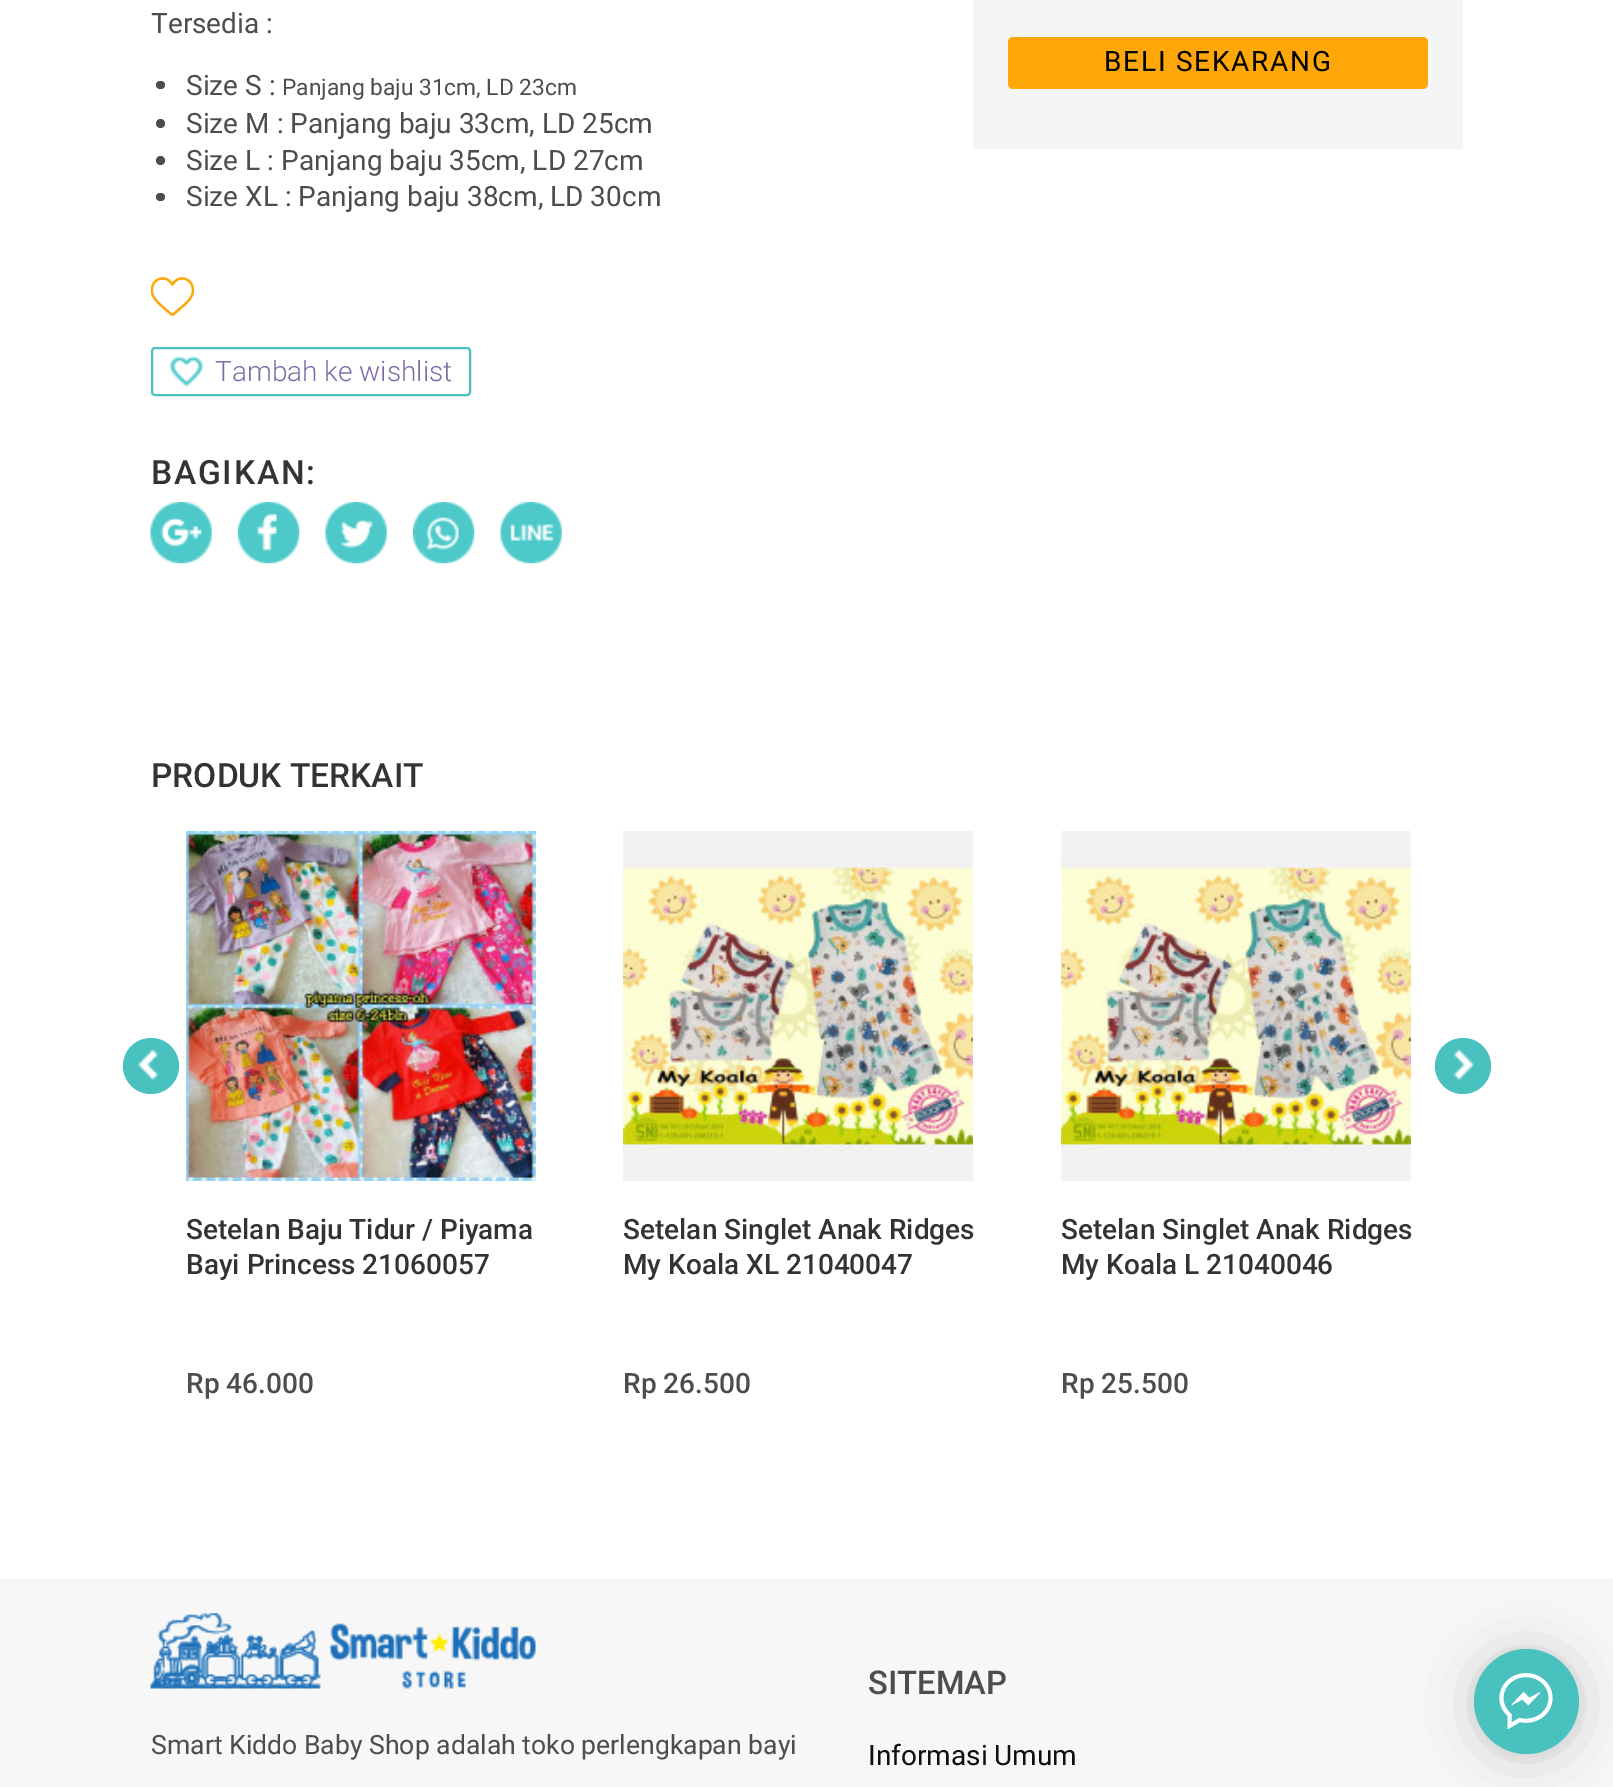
%!PS
<< /PageSize [1613 1787] /PageUsesTransparency true >> setpagedevice
/alpha { dup .setfillconstantalpha .setstrokeconstantalpha } def
/roundrect { 5 dict begin { /r /h /w /y /x } { exch def } forall
  x r add y moveto x w add y 2 copy h add r arct x w add y h add x 1 index r arct
  x y h add x y r arct x y 2 copy exch w add exch r arct closepath end } def
/shadow { 12 dict begin { /a /b /q /h /w /y /x } { exch def } forall gsave /was 0 def
  9 -2 -9 { dup b mul 4 div /e exch def 1 sub .425 mul 2.718 exch exp 1 add a .99 .min exch div /now exch def
    1 1 now sub 1 was sub div sub alpha /was now def
    w h .min e 2 mul add 0 gt { x e sub y e sub w e 2 mul add h e 2 mul add
      q e add b .6 mul add w h .min 2 div e add .min 0 .max roundrect fill } if } for grestore end } def
/picture { 5 dict begin { /h /w /y /x /name } { exch def } forall
  gsave x y translate w h scale
  w h 8 [w 0 0 h 0 0] name (r) file false 3 colorimage grestore end } def
0 .pushpdf14devicefilter
0 1787 translate 1 -1 scale
4 setmiterlimit
1 setgray
0 0 1613 1787 rectfill
/Roboto-Regular [28 0 0 -28 0 0] selectfont
0.302 setgray
151 33 moveto (Tersedia :) show
0.298 setgray
156 81 9 8 4 roundrect fill
0.302 setgray
186 95 moveto (Size S :) show
/Roboto-Regular [22.75 0 0 -22.75 0 0] selectfont
282 95 moveto (Panjang baju 31cm, LD 23cm) show
0.298 setgray
newpath 160.5 123.5 4.5 0 360 arc closepath fill
/Roboto-Regular [28 0 0 -28 0 0] selectfont
0.302 setgray
186 133 moveto (Size M : Panjang baju 33cm, LD 25cm) show
0.298 setgray
newpath 160.5 160.5 4.5 0 360 arc closepath fill
0.302 setgray
186 170 moveto (Size L : Panjang baju 35cm, LD 27cm) show
0.298 setgray
156 193 9 8 4 roundrect fill
0.302 setgray
186 206 moveto (Size XL : Panjang baju 38cm, LD 30cm) show
(img1.rgb) 151 277 43 40 picture
0.286 0.757 0.749 setrgbcolor
2 setlinewidth
152 348 318 47 3 roundrect stroke
(img2.rgb) 169 356 34 31 picture
/Roboto-Light [28 0 0 -28 0 0] selectfont
0.486 0.42 0.659 setrgbcolor
215 381 moveto (Tambah ke wishlist) show
/Roboto-Medium [33.5 0 0 -33.5 0 0] selectfont
0.2 setgray
151 484 moveto 1.75 0 (BAGIKAN:) ashow
(img3.rgb) 150 502 62 62 picture
(img4.rgb) 238 502 62 62 picture
(img5.rgb) 325 502 62 62 picture
(img6.rgb) 413 502 62 62 picture
(img7.rgb) 500 502 62 62 picture
0.961 setgray
973 0 490 149 rectfill
1 0.655 0.031 setrgbcolor
1008 37 420 52 5 roundrect fill
/Roboto-Regular [28 0 0 -28 0 0] selectfont
0 setgray
1104 71 moveto 1.75 0 (BELI SEKARANG) ashow
/Roboto-Medium [33.5 0 0 -33.5 0 0] selectfont
0.2 setgray
151 787 moveto (PRODUK TERKAIT) show
0.286 0.757 0.749 setrgbcolor
newpath 151 1066 28 0 360 arc closepath fill
(img8.rgb) 137 1049 21 31 picture
newpath 1463 1066 28 0 360 arc closepath fill
(img9.rgb) 1453 1049 21 31 picture
(img10.rgb) 186 831 350 350 picture
/Roboto-Medium [28 0 0 -28 0 0] selectfont
0.2 setgray
186 1239 moveto (Setelan Baju Tidur / Piyama) show
186 1274 moveto (Bayi Princess 21060057) show
0.302 setgray
186 1393 moveto (Rp 46.000) show
0.949 setgray
623 831 350 350 rectfill
(img11.rgb) 623 859 350 294 picture
0.2 setgray
623 1239 moveto (Setelan Singlet Anak Ridges) show
623 1274 moveto (My Koala XL 21040047) show
0.302 setgray
623 1393 moveto (Rp 26.500) show
0.949 setgray
1061 831 350 350 rectfill
(img12.rgb) 1061 859 350 295 picture
0.2 setgray
1061 1239 moveto (Setelan Singlet Anak Ridges) show
1061 1274 moveto (My Koala L 21040046) show
0.302 setgray
1061 1393 moveto (Rp 25.500) show
0.969 setgray
0 1579 1613 208 rectfill
(img13.rgb) 150 1613 386 76 picture
/Roboto-Regular [26.6 0 0 -26.6 0 0] selectfont
0.302 setgray
151 1754 moveto (Smart Kiddo Baby Shop adalah toko perlengkapan bayi) show
/Roboto-Medium [32.75 0 0 -32.75 0 0] selectfont
868 1694 moveto (SITEMAP) show
/Roboto-Regular [28 0 0 -28 0 0] selectfont
0.059 setgray
868 1765 moveto (Informasi Umum) show
0 setgray
1474 1652 105 105 52.5 28 0.16 shadow
1474 1650 105 105 52.5 5 0.06 shadow
0.286 0.757 0.749 setrgbcolor
newpath 1526.5 1701.5 52.5 0 360 arc closepath fill
(img14.rgb) 1499 1673 54 56 picture
.poppdf14devicefilter showpage
